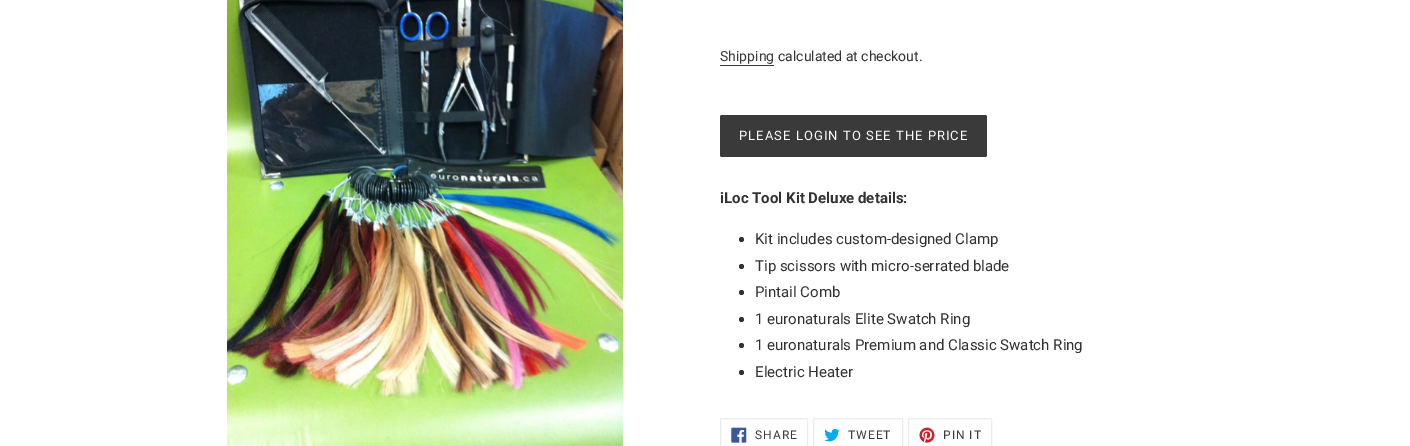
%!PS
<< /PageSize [1410 446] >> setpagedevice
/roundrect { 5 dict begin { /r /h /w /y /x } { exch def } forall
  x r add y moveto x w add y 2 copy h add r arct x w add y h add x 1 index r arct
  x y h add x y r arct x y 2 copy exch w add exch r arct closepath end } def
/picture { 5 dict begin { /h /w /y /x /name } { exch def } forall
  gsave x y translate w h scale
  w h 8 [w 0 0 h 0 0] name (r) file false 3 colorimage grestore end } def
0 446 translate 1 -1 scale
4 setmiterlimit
1 setgray
0 0 1410 446 rectfill
(img1.rgb) 227 0 396 446 picture
/Roboto-Regular [14 0 0 -14 0 0] selectfont
0.227 setgray
720 61 moveto (Shipping) show
720 65 54 1 rectfill
0.2 0.196 0.196 setrgbcolor
778 61 moveto (calculated at checkout.) show
0.227 setgray
720 115 267 42 2 roundrect fill
/Roboto-Regular [13 0 0 -13 0 0] selectfont
1 setgray
739 140 moveto 1.05 0 (PLEASE LOGIN TO SEE THE PRICE) ashow
/Roboto-Bold [15 0 0 -15 0 0] selectfont
0.2 0.196 0.196 setrgbcolor
720 203 moveto (iLoc Tool Kit Deluxe details:) show
newpath 741.5 239.5 2.5 0 360 arc closepath fill
/Roboto-Regular [15 0 0 -15 0 0] selectfont
755 244 moveto (Kit includes custom-designed Clamp) show
newpath 741.5 266.5 2.5 0 360 arc closepath fill
755 271 moveto (Tip scissors with micro-serrated blade) show
newpath 741.5 292.5 2.5 0 360 arc closepath fill
755 297 moveto (Pintail Comb) show
newpath 741.5 319.5 2.5 0 360 arc closepath fill
755 324 moveto (1 euronaturals Elite Swatch Ring) show
newpath 741.5 345.5 2.5 0 360 arc closepath fill
755 350 moveto (1 euronaturals Premium and Classic Swatch Ring) show
newpath 741.5 372.5 2.5 0 360 arc closepath fill
755 377 moveto (Electric Heater) show
0.922 setgray
720.5 418.5 87 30 1.5 roundrect stroke
(img2.rgb) 731 427 16 16 picture
/Roboto-Regular [12 0 0 -12 0 0] selectfont
0.227 setgray
755 439 moveto 1 0 (SHARE) ashow
0.922 setgray
813.5 418.5 89 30 1.5 roundrect stroke
(img3.rgb) 824 428 16 14 picture
0.227 setgray
848 439 moveto 1 0 (TWEET) ashow
0.922 setgray
908.5 418.5 83 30 1.5 roundrect stroke
(img4.rgb) 919 427 16 16 picture
0.227 setgray
943 439 moveto 1 0 (PIN IT) ashow
showpage
